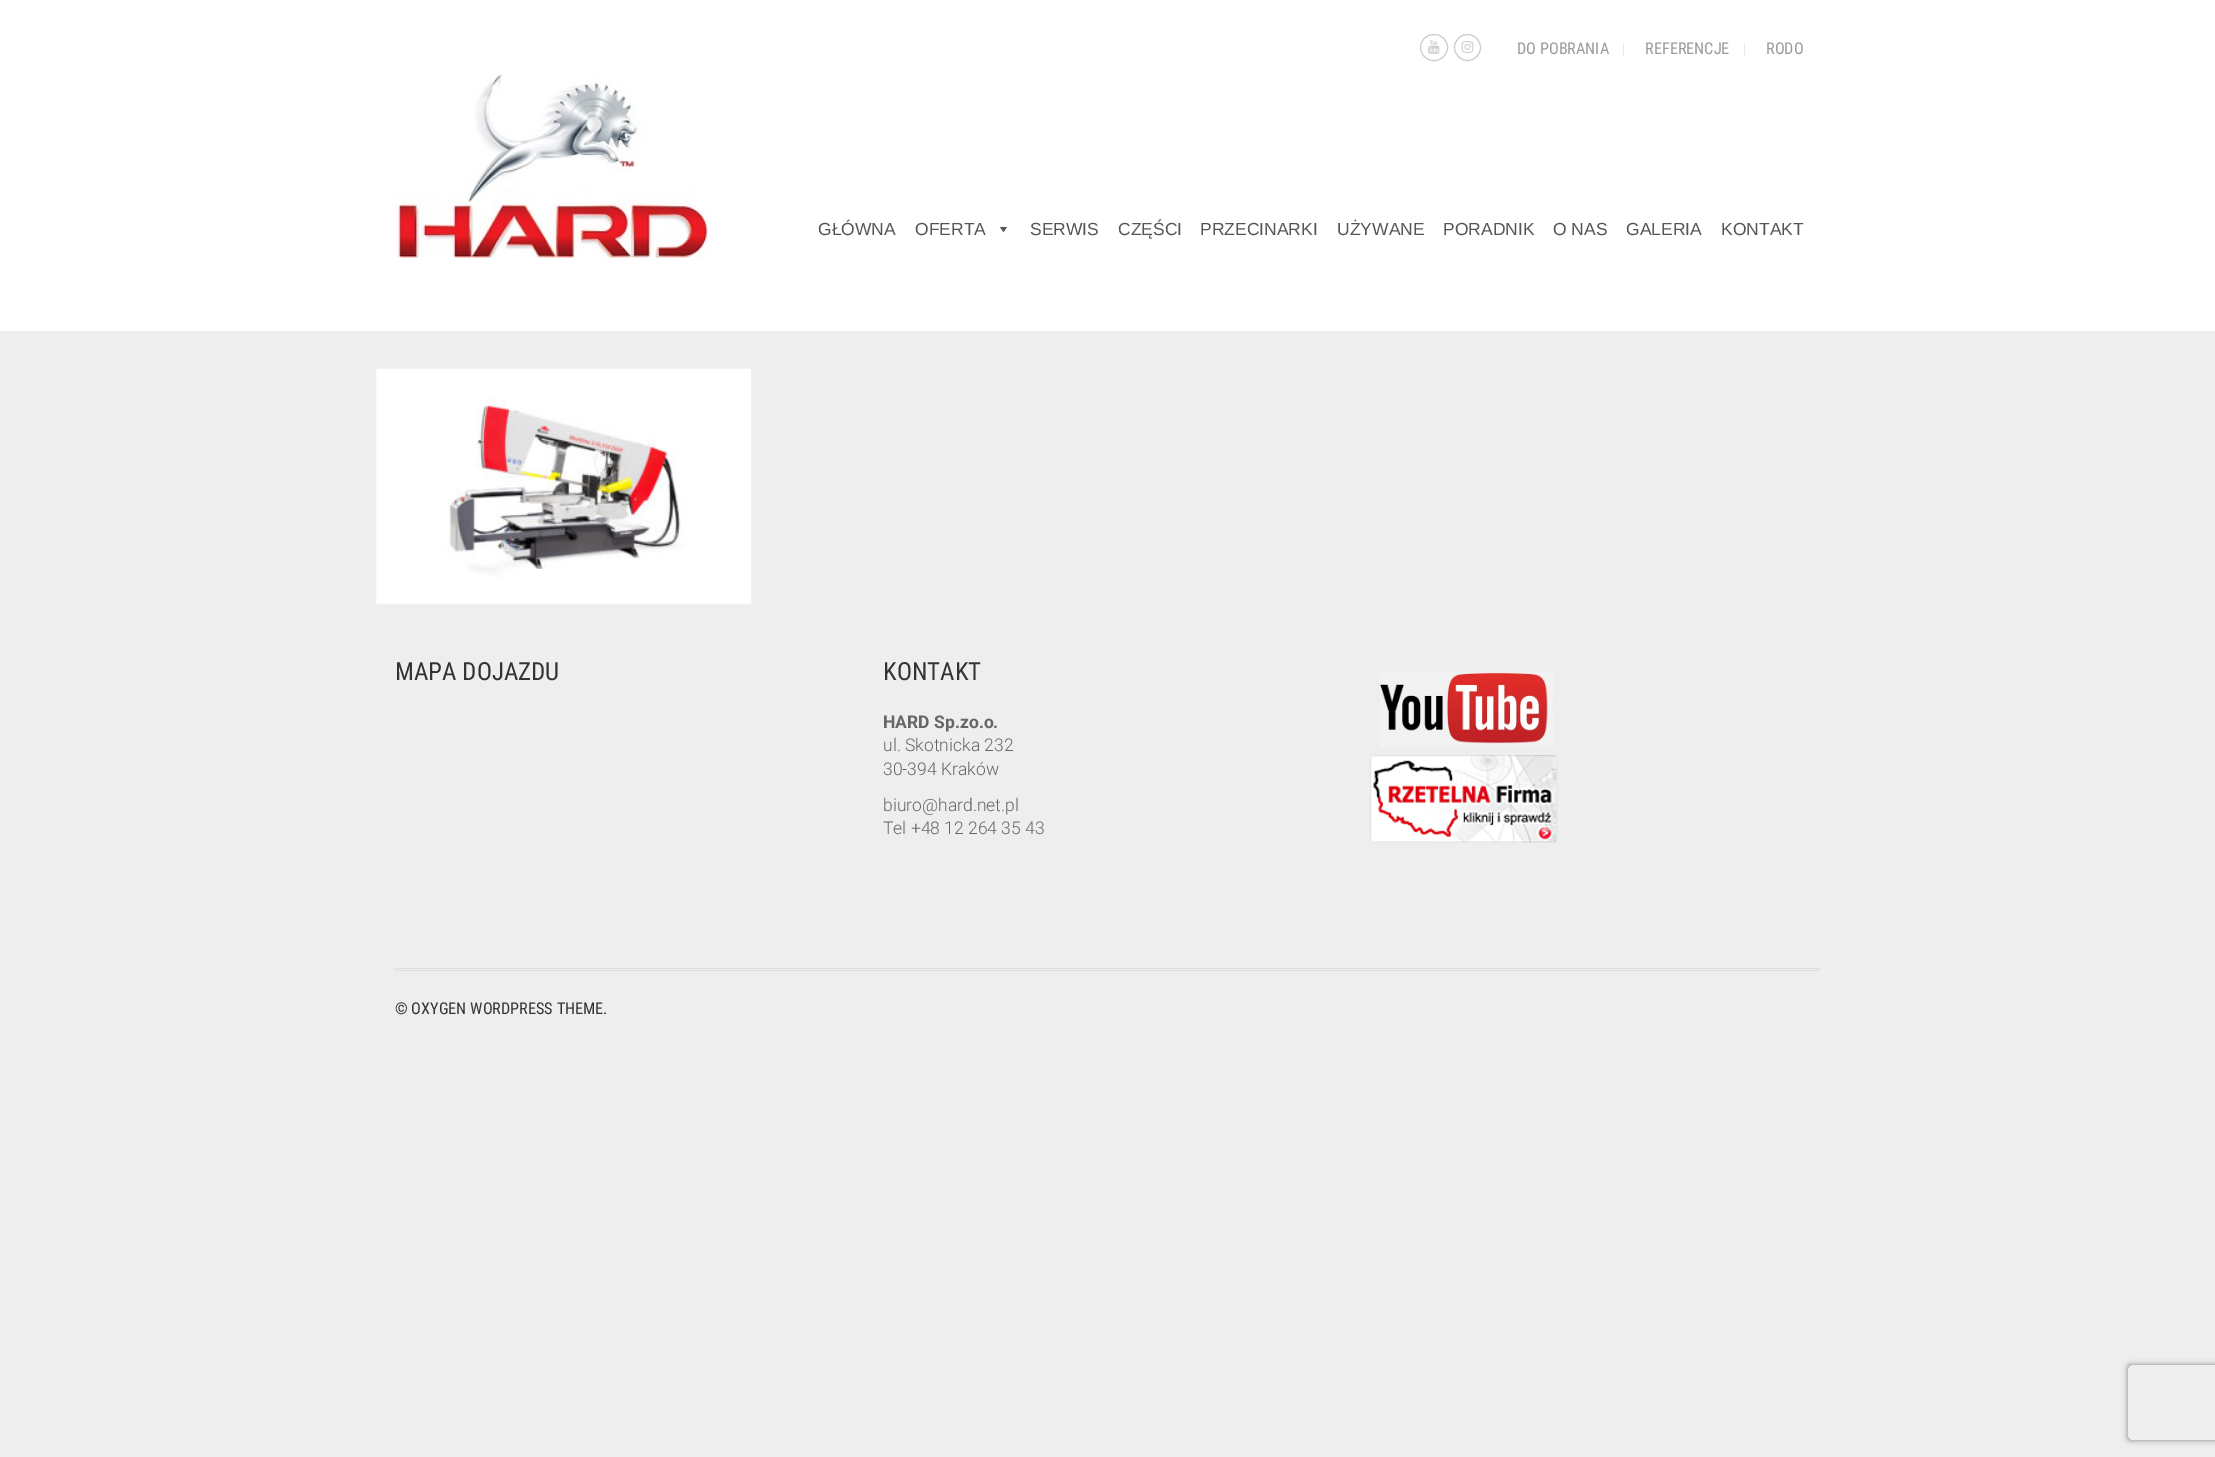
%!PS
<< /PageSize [2215 1457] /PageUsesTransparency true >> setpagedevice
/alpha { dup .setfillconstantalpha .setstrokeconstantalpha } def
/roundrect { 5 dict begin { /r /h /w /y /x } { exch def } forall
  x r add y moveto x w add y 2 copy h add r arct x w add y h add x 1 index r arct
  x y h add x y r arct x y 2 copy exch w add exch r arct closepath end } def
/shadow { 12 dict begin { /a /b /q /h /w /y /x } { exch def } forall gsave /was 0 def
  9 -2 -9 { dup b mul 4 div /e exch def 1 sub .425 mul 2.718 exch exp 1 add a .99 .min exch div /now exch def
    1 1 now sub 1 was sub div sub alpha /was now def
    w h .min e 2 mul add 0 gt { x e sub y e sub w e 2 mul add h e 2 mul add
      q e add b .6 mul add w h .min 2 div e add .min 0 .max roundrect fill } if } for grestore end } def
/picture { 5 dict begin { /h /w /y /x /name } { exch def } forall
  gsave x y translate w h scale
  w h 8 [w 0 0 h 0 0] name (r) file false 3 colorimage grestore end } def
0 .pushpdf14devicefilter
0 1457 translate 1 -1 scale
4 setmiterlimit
0.933 setgray
0 0 2215 1457 rectfill
1 setgray
0 0 2215 331 rectfill
(img1.rgb) 395 74 313 184 picture
0.8 setgray
1420.5 34.5 27 26 13 roundrect stroke
(img2.rgb) 1428 40 12 14 picture
newpath 1467.5 47.5 13 0 360 arc closepath stroke
(img3.rgb) 1461 41 13 12 picture
/RobotoCondensed-Regular [16.25 0 0 -16.25 0 0] selectfont
0.6 setgray
1517 54 moveto (DO POBRANIA) show
0.922 setgray
1623 43 1 13 rectfill
0.6 setgray
1645 54 moveto (REFERENCJE) show
0.922 setgray
1744 43 1 13 rectfill
0.6 setgray
1766 54 moveto (RODO) show
/LiberationSans-Regular [17.5 0 0 -17.5 0 0] selectfont
0.333 setgray
818 235 moveto (GŁÓWNA) show
915 235 moveto (OFERTA) show
newpath 1007 227 moveto 1003.5 232 lineto 1000 227 lineto closepath fill
1030 235 moveto (SERWIS) show
1118 235 moveto (CZĘŚCI) show
1200 235 moveto (PRZECINARKI) show
1337 235 moveto (UŻYWANE) show
1443 235 moveto (PORADNIK) show
1553 235 moveto (O NAS) show
1626 235 moveto (GALERIA) show
1721 235 moveto (KONTAKT) show
(img4.rgb) 376 368 376 236 picture
/RobotoCondensed-Regular [25 0 0 -25 0 0] selectfont
0.2 setgray
395 680 moveto (MAPA DOJAZDU) show
883 680 moveto (KONTAKT) show
/Roboto-Bold [17.5 0 0 -17.5 0 0] selectfont
0.4 setgray
883 728 moveto (HARD Sp.zo.o.) show
/Roboto-Light [17.5 0 0 -17.5 0 0] selectfont
883 751 moveto (ul. Skotnicka 232) show
883 775 moveto (30-394 Kraków) show
883 811 moveto (biuro@hard.net.pl) show
883 834 moveto (Tel +48 12 264 35 43) show
(img5.rgb) 1380 672 173 75 picture
(img6.rgb) 1370 755 188 88 picture
0.867 setgray
395 968 1425 1 rectfill
395 970 1425 1 rectfill
/RobotoCondensed-Regular [16.25 0 0 -16.25 0 0] selectfont
0.2 setgray
395 1014 moveto (© OXYGEN WORDPRESS THEME.) show
gsave
newpath 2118 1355 moveto 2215 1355 lineto 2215 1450 lineto 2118 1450 lineto closepath 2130.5 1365 moveto 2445.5 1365 lineto 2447 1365 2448 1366 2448 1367.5 curveto 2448 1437.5 lineto 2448 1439 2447 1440 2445.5 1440 curveto 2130.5 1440 lineto 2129 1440 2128 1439 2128 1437.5 curveto 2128 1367.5 lineto 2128 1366 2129 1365 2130.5 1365 curveto closepath eoclip newpath
0.502 setgray
2128 1365 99 75 2.5 3 1 shadow
grestore
.poppdf14devicefilter showpage
